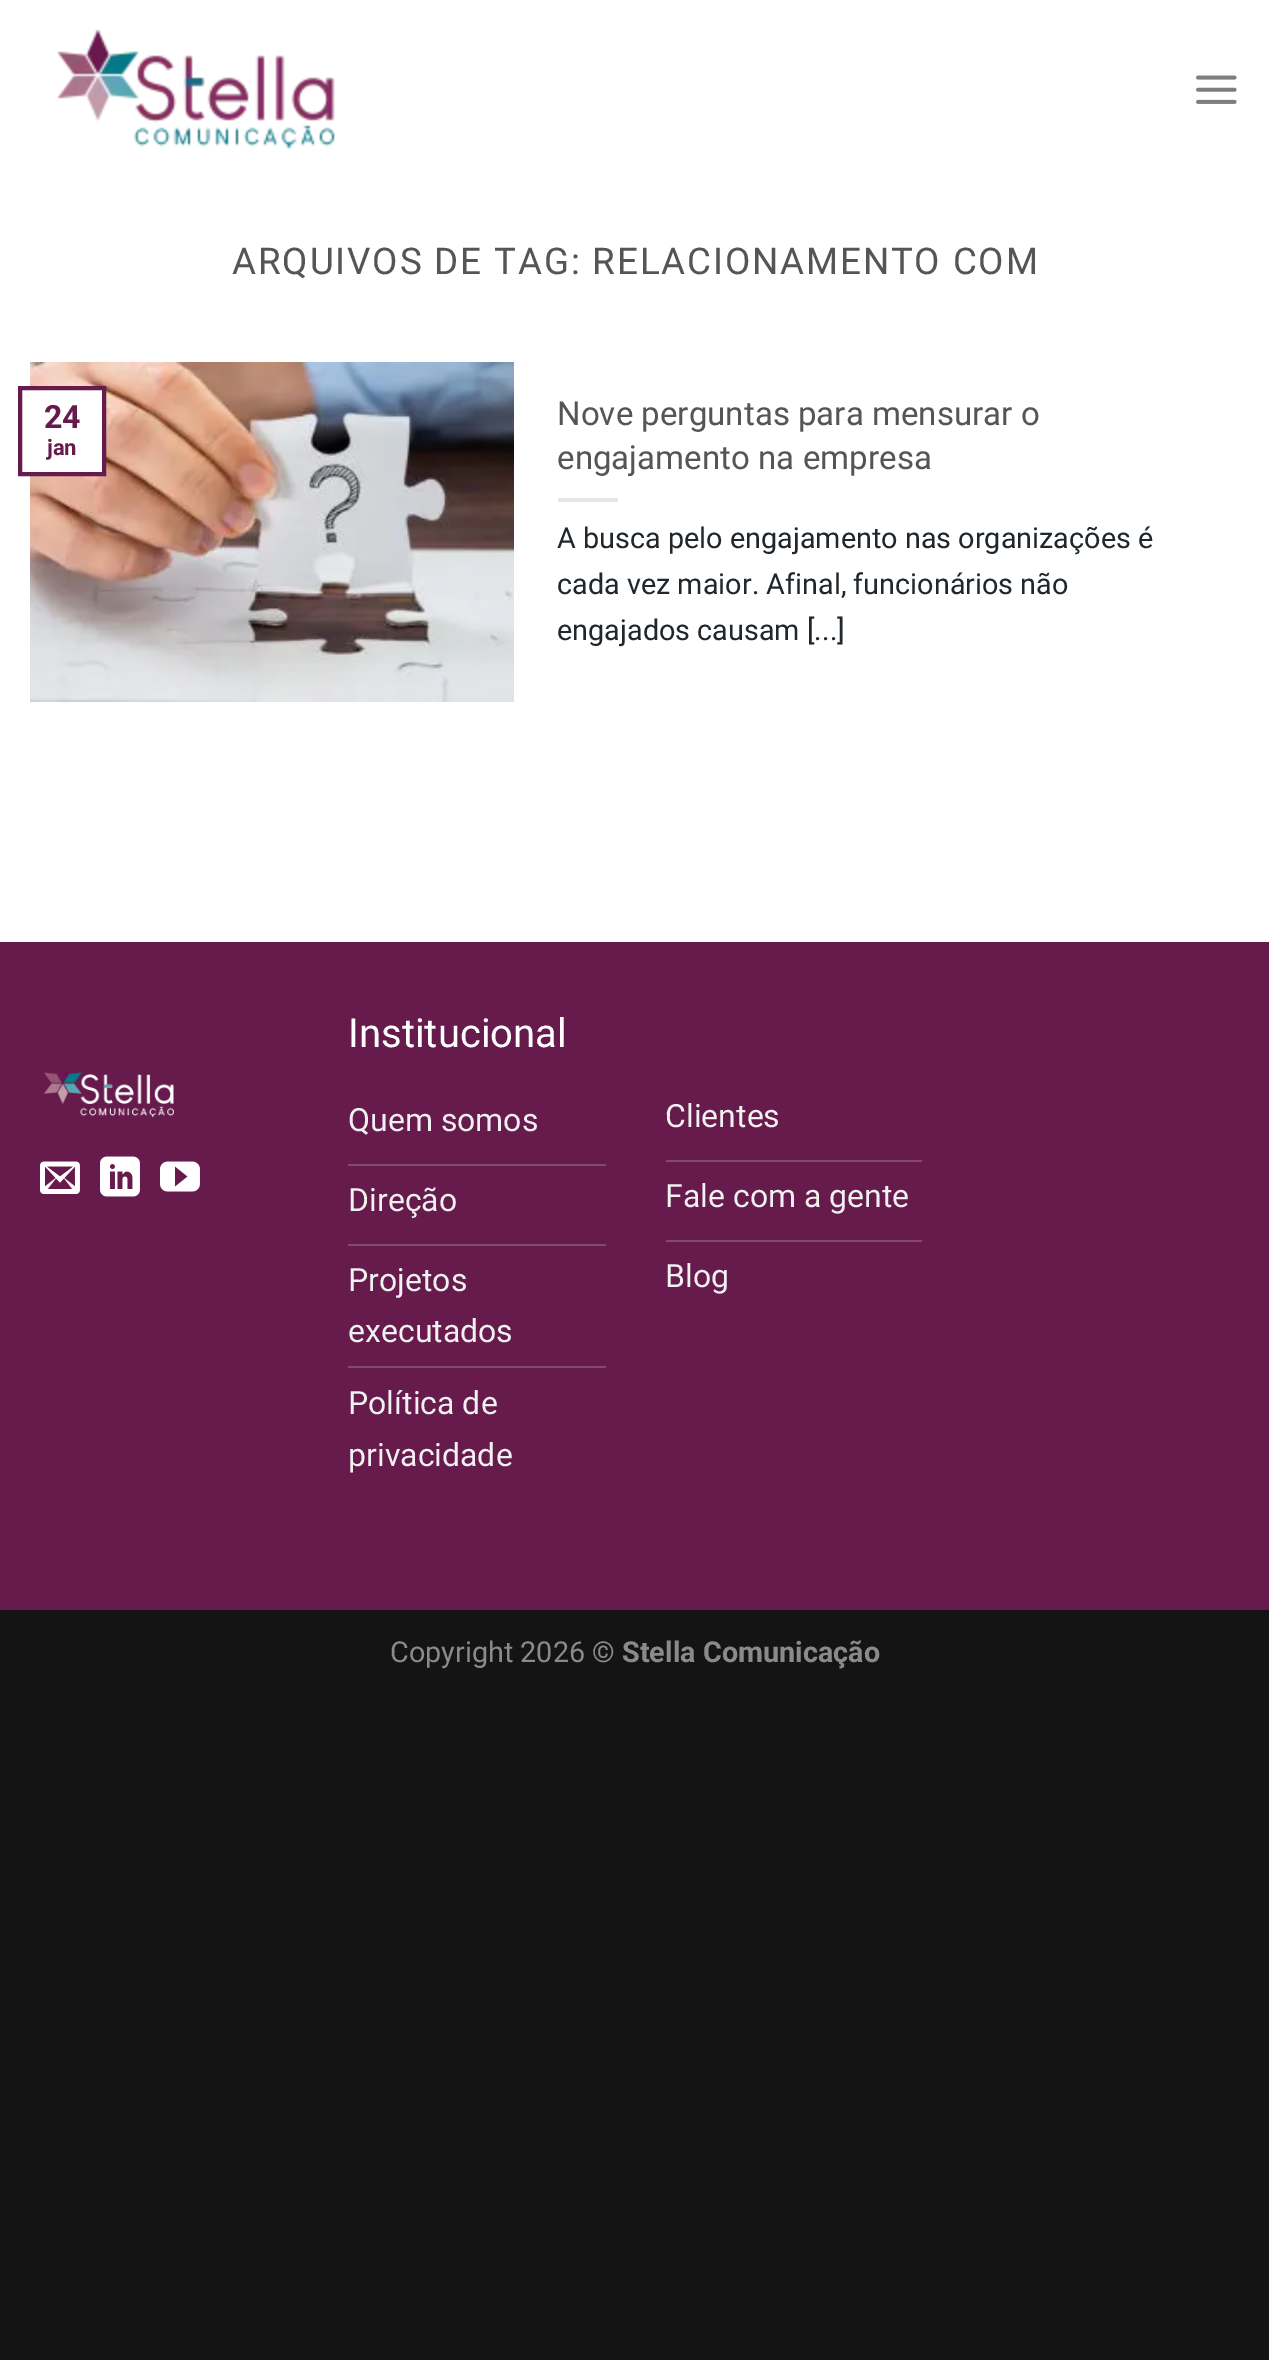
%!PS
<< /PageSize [1269 2360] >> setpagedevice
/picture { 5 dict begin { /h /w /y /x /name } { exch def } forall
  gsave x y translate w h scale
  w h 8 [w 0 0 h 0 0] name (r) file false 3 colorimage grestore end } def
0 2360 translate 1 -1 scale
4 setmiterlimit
0.078 setgray
0 0 1269 2360 rectfill
1 setgray
0 0 1269 942 rectfill
(img1.rgb) 57 30 278 119 picture
(img2.rgb) 1196 75 41 29 picture
/Roboto-Regular [36.8 0 0 -36.8 0 0] selectfont
0.333 setgray
232 274 moveto 1.85 0 (ARQUIVOS DE TAG: RELACIONAMENTO COM) ashow
(img3.rgb) 30 362 484 340 picture
/Roboto-Regular [33.1 0 0 -33.1 0 0] selectfont
557 425 moveto (Nove perguntas para mensurar o) show
557 469 moveto (engajamento na empresa) show
0.902 setgray
558 498 60 4 rectfill
/Roboto-Regular [28.8 0 0 -28.8 0 0] selectfont
0.122 0.153 0.173 setrgbcolor
557 548 moveto (A busca pelo engajamento nas organizações é) show
557 594 moveto (cada vez maior. Afinal, funcionários não) show
557 640 moveto (engajados causam [...]) show
1 setgray
30 390 72 82 rectfill
0.4 0.106 0.298 setrgbcolor
4 setlinewidth
20 388 84 86 rectstroke
/Roboto-Bold [32 0 0 -32 0 0] selectfont
44 428 moveto (24) show
/Roboto-Bold [22 0 0 -22 0 0] selectfont
47 455 moveto (jan) show
0 942 1269 668 rectfill
(img4.rgb) 44 1065 130 53 picture
(img5.rgb) 40 1161 40 33 picture
(img6.rgb) 100 1156 40 41 picture
(img7.rgb) 160 1161 40 31 picture
/Roboto-Regular [40 0 0 -40 0 0] selectfont
1 setgray
348 1047 moveto (Institucional) show
0.522 0.286 0.439 setrgbcolor
348 1164 258 2 rectfill
/Roboto-Regular [32 0 0 -32 0 0] selectfont
0.945 setgray
348 1131 moveto (Quem somos) show
0.522 0.286 0.439 setrgbcolor
348 1244 258 2 rectfill
0.945 setgray
348 1211 moveto (Direção) show
0.522 0.286 0.439 setrgbcolor
348 1366 258 2 rectfill
0.945 setgray
348 1291 moveto (Projetos) show
348 1342 moveto (executados) show
348 1414 moveto (Política de) show
348 1466 moveto (privacidade) show
0.522 0.286 0.439 setrgbcolor
666 1160 256 2 rectfill
0.945 setgray
665 1127 moveto (Clientes) show
0.522 0.286 0.439 setrgbcolor
666 1240 256 2 rectfill
0.945 setgray
665 1207 moveto (Fale com a gente) show
665 1287 moveto (Blog) show
/Roboto-Regular [28.8 0 0 -28.8 0 0] selectfont
0.541 setgray
390 1662 moveto (Copyright 2026 ©) show
/Roboto-Bold [28.8 0 0 -28.8 0 0] selectfont
622 1662 moveto (Stella Comunicação) show
showpage
